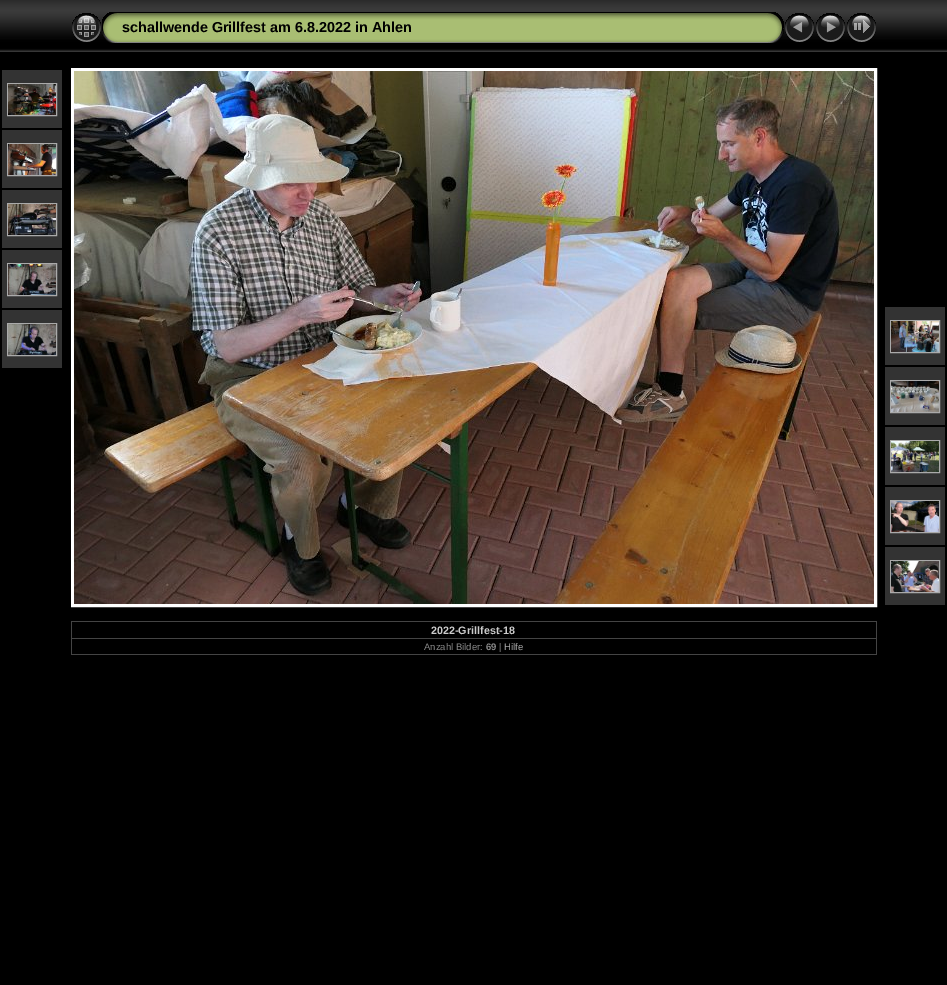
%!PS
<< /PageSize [947 985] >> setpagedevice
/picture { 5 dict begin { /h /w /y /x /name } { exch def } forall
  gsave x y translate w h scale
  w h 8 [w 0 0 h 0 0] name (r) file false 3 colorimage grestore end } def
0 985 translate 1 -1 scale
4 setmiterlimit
0 setgray
0 0 947 985 rectfill
(img1.rgb) 0 0 947 52 picture
(img2.rgb) 72 13 29 29 picture
(img3.rgb) 102 12 20 31 picture
(img4.rgb) 122 12 642 31 picture
/LiberationSans-Bold [14.4 0 0 -14.4 0 0] selectfont
122 32 moveto (schallwende Grillfest am 6.8.2022 in Ahlen) show
(img5.rgb) 764 12 20 31 picture
(img6.rgb) 785 13 29 29 picture
(img7.rgb) 816 13 29 29 picture
(img8.rgb) 847 13 29 29 picture
0.2 setgray
2 70 60 58 rectfill
0.667 setgray
7.5 83.5 49 32 rectstroke
(img9.rgb) 8 84 48 31 picture
0.2 setgray
2 130 60 58 rectfill
0.667 setgray
7.5 143.5 49 32 rectstroke
(img10.rgb) 8 144 48 31 picture
0.2 setgray
2 190 60 58 rectfill
0.667 setgray
7.5 203.5 49 32 rectstroke
(img11.rgb) 8 204 48 31 picture
0.2 setgray
2 250 60 58 rectfill
0.667 setgray
7.5 263.5 49 32 rectstroke
(img12.rgb) 8 264 48 31 picture
0.2 setgray
2 310 60 58 rectfill
0.667 setgray
7.5 323.5 49 32 rectstroke
(img13.rgb) 8 324 48 31 picture
1 setgray
3 setlinewidth
72.5 69.5 803 536 rectstroke
(img14.rgb) 74 71 800 533 picture
0.2 setgray
885 307 60 58 rectfill
0.667 setgray
1 setlinewidth
890.5 320.5 49 32 rectstroke
(img15.rgb) 891 321 48 31 picture
0.2 setgray
885 367 60 58 rectfill
0.667 setgray
890.5 380.5 49 32 rectstroke
(img16.rgb) 891 381 48 31 picture
0.2 setgray
885 427 60 58 rectfill
0.667 setgray
890.5 440.5 49 32 rectstroke
(img17.rgb) 891 441 48 31 picture
0.2 setgray
885 487 60 58 rectfill
0.667 setgray
890.5 500.5 49 32 rectstroke
(img18.rgb) 891 501 48 31 picture
0.2 setgray
885 547 60 58 rectfill
0.667 setgray
890.5 560.5 49 32 rectstroke
(img19.rgb) 891 561 48 31 picture
0.267 setgray
71 621 806 1 rectfill
876 621 1 34 rectfill
71 654 806 1 rectfill
71 621 1 34 rectfill
/LiberationSans-Bold [10.75 0 0 -10.75 0 0] selectfont
0.8 setgray
431 634 moveto (2022-Grillfest-18) show
0.267 setgray
71 638 806 1 rectfill
/LiberationSans-Regular [9.5 0 0 -9.5 0 0] selectfont
0.533 setgray
424 650 moveto (Anzahl Bilder:) show
/LiberationSans-Bold [9.5 0 0 -9.5 0 0] selectfont
486 650 moveto (69) show
/LiberationSans-Regular [9.5 0 0 -9.5 0 0] selectfont
499 650 moveto (|) show
0.667 setgray
504 650 moveto (Hilfe) show
showpage
